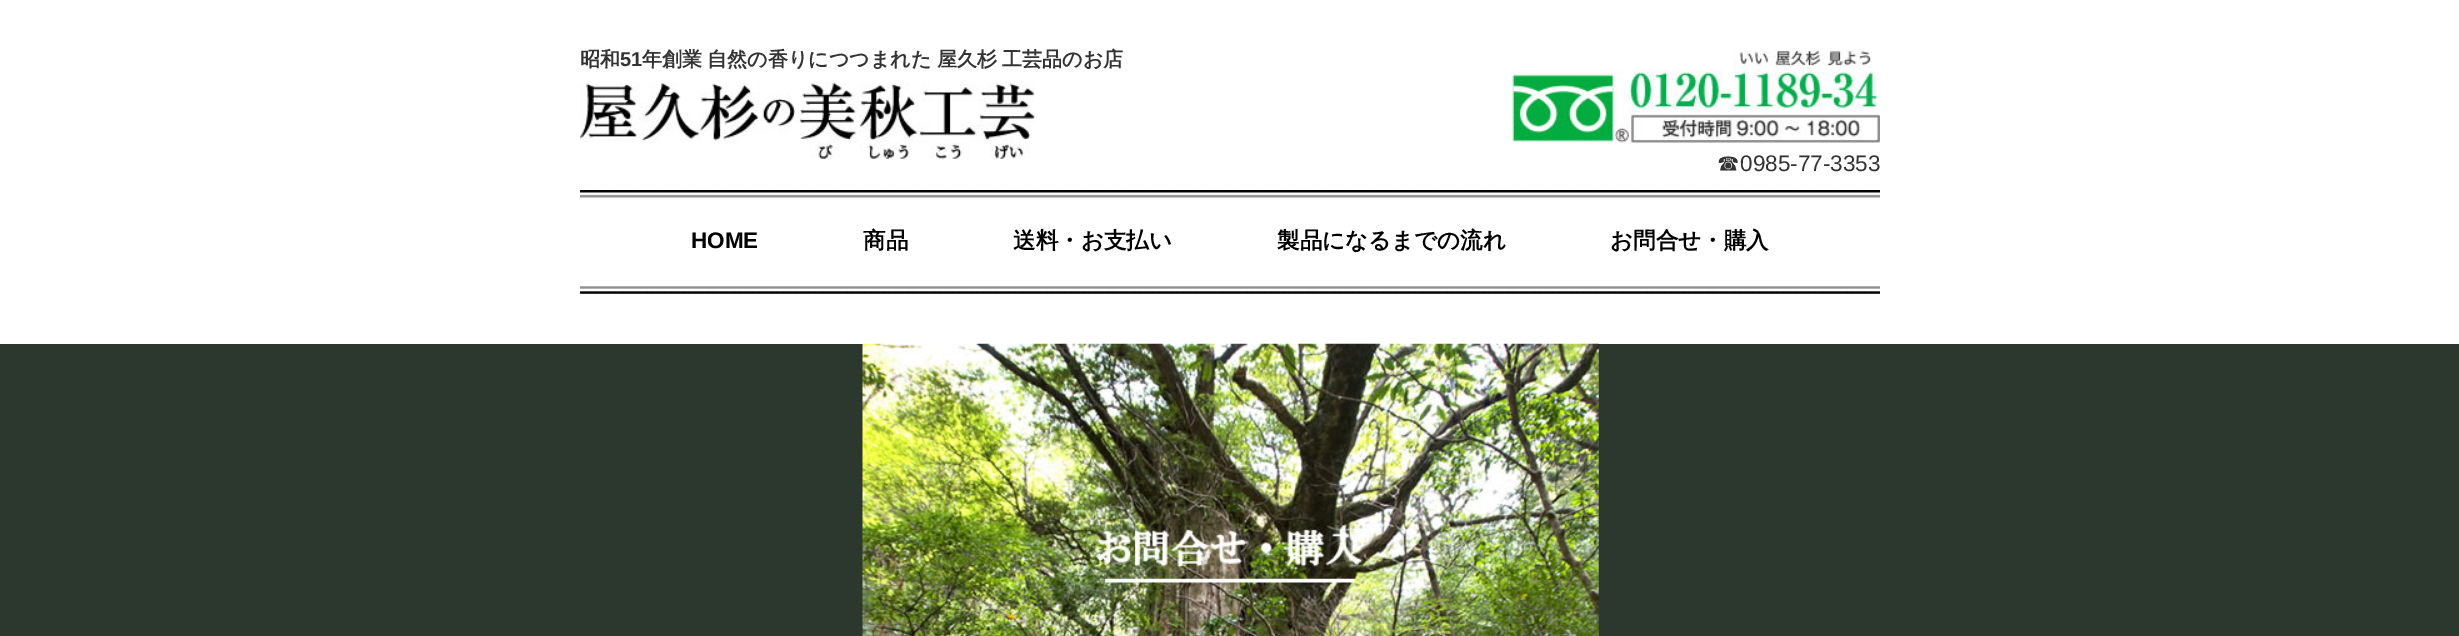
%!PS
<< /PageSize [2459 636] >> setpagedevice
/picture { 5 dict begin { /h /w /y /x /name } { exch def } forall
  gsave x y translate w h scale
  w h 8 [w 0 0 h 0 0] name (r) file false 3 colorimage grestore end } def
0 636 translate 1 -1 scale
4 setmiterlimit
1 setgray
0 0 2459 636 rectfill
/WenQuanYiZenHei-Bold [20 0 0 -20 0 0] selectfont
0.2 setgray
580 66 moveto (昭和) show
/LiberationSans-Bold [20 0 0 -20 0 0] selectfont
620 66 moveto (51) show
/WenQuanYiZenHei-Bold [20 0 0 -20 0 0] selectfont
642 66 moveto -0.5 0 32 (年創業 自然の香りにつつまれた 屋久杉 工芸品のお店) widthshow
(img1.rgb) 580 82 455 77 picture
(img2.rgb) 1512 50 368 93 picture
/WenQuanYiZenHei-Medium [22.5 0 0 -22.5 0 0] selectfont
1717 171 moveto (☎) show
/LiberationSans-Regular [22.5 0 0 -22.5 0 0] selectfont
1740 171 moveto (0985-77-3353) show
(img3.rgb) 580 190 1300 104 picture
/LiberationSans-Bold [22.5 0 0 -22.5 0 0] selectfont
0 setgray
691 248 moveto (HOME) show
/WenQuanYiZenHei-Bold [22.5 0 0 -22.5 0 0] selectfont
863 248 moveto (商品) show
1013 248 moveto (送料・お支払い) show
1277 248 moveto (製品になるまでの流れ) show
1610 248 moveto (お問合せ・購入) show
0.173 0.216 0.18 setrgbcolor
0 344 2459 292 rectfill
(img4.rgb) 862 343 737 293 picture
showpage
